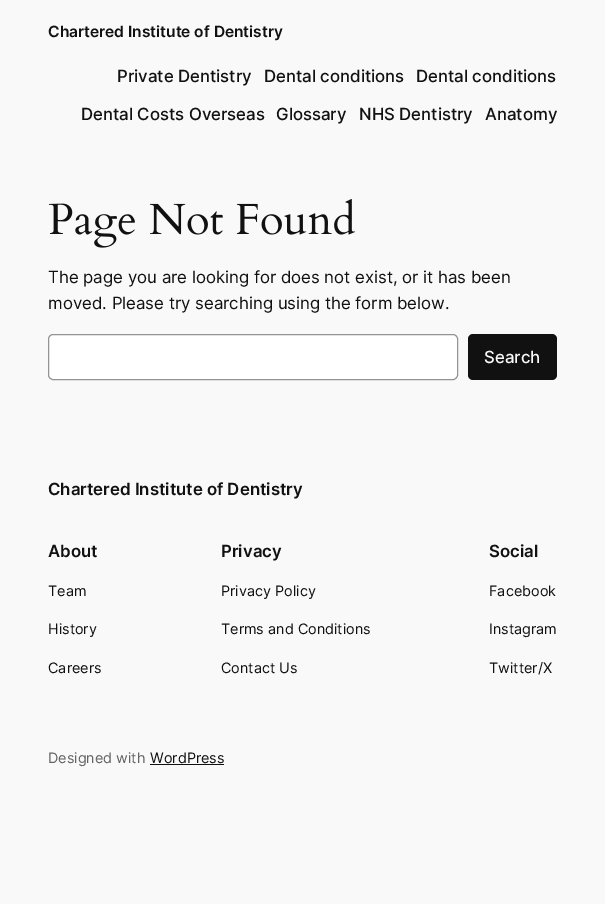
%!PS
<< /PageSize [605 904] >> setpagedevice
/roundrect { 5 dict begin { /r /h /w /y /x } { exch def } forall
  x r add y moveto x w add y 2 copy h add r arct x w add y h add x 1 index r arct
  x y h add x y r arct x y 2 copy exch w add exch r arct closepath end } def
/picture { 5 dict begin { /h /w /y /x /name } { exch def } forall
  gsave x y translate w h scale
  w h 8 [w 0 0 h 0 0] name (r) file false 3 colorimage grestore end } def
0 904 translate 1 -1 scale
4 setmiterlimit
0.976 setgray
0 0 605 904 rectfill
/Inter-SemiBold [15.5 0 0 -15.5 0 0] selectfont
0.067 setgray
48 37 moveto (Chartered Institute of Dentistry) show
/Inter-Medium [16.8 0 0 -16.8 0 0] selectfont
117 82 moveto (Private Dentistry) show
264 82 moveto (Dental conditions) show
416 82 moveto (Dental conditions) show
81 120 moveto (Dental Costs Overseas) show
276 120 moveto (Glossary) show
359 120 moveto (NHS Dentistry) show
485 120 moveto (Anatomy) show
(img1.rgb) 48 199 308 49 picture
/Inter-Regular [16.8 0 0 -16.8 0 0] selectfont
48 283 moveto (The page you are looking for does not exist, or it has been) show
48 309 moveto (moved. Please try searching using the form below.) show
1 setgray
48.5 334.5 409 45 4.5 roundrect gsave fill grestore
0.58 setgray
stroke
0.067 setgray
468 334 89 46 5 roundrect fill
/Inter-Medium [16.8 0 0 -16.8 0 0] selectfont
0.976 setgray
484 363 moveto (Search) show
/Inter-SemiBold [16.8 0 0 -16.8 0 0] selectfont
0.067 setgray
48 495 moveto (Chartered Institute of Dentistry) show
48 557 moveto (About) show
/Inter-Regular [14.4 0 0 -14.4 0 0] selectfont
48 596 moveto (Team) show
48 634 moveto (History) show
48 673 moveto (Careers) show
/Inter-SemiBold [16.8 0 0 -16.8 0 0] selectfont
221 557 moveto (Privacy) show
/Inter-Regular [14.4 0 0 -14.4 0 0] selectfont
221 596 moveto (Privacy Policy) show
221 634 moveto (Terms and Conditions) show
221 673 moveto (Contact Us) show
/Inter-SemiBold [16.8 0 0 -16.8 0 0] selectfont
489 557 moveto (Social) show
/Inter-Regular [14.4 0 0 -14.4 0 0] selectfont
489 596 moveto (Facebook) show
489 634 moveto (Instagram) show
489 673 moveto (Twitter/X) show
0.388 setgray
48 763 moveto (Designed with) show
0.067 setgray
150 763 moveto (WordPress) show
150 764 74 1 rectfill
showpage
